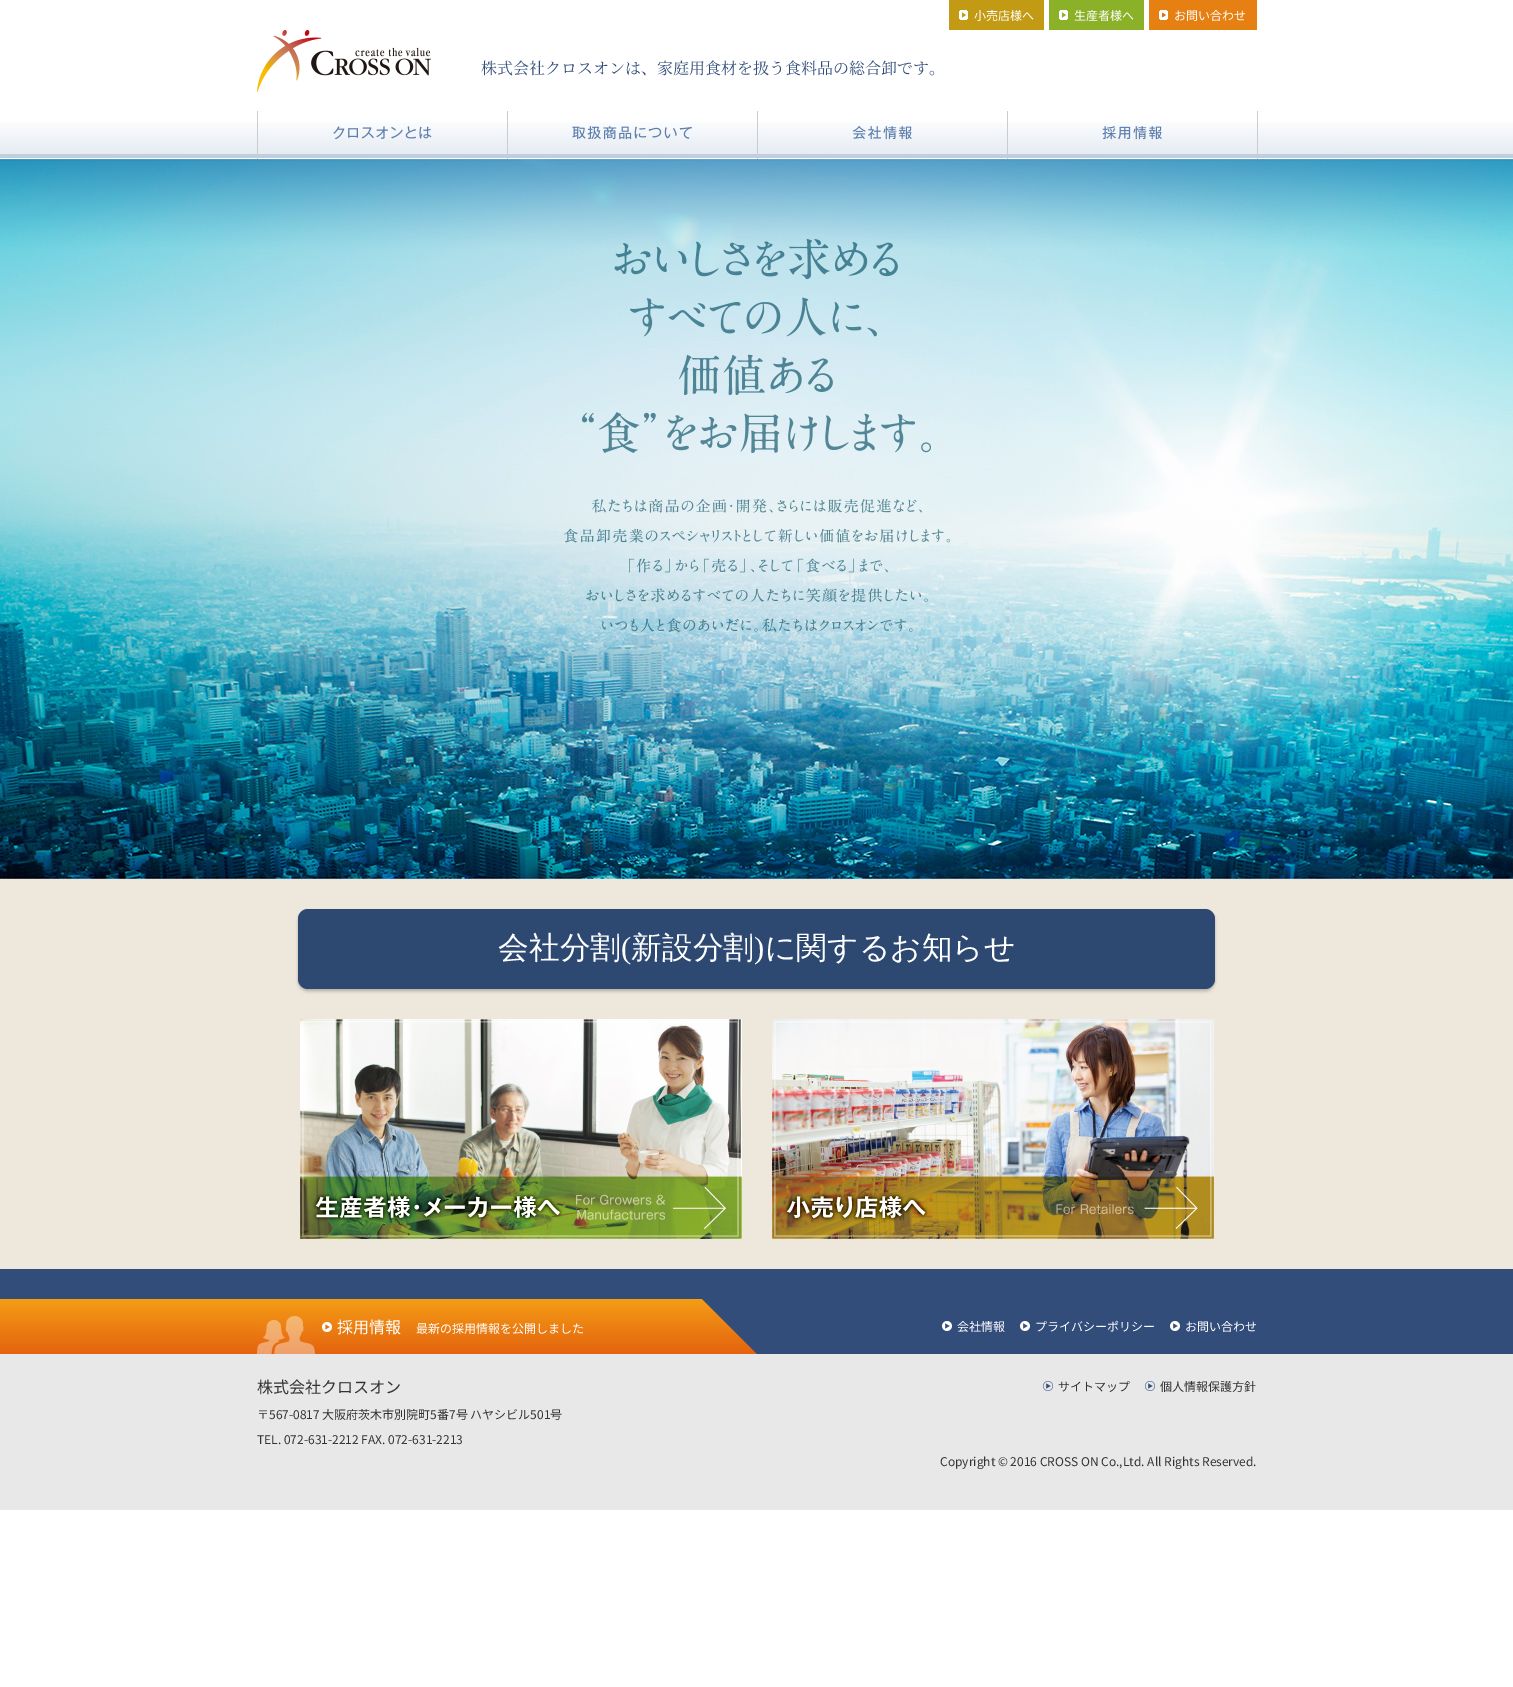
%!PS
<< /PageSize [1513 1687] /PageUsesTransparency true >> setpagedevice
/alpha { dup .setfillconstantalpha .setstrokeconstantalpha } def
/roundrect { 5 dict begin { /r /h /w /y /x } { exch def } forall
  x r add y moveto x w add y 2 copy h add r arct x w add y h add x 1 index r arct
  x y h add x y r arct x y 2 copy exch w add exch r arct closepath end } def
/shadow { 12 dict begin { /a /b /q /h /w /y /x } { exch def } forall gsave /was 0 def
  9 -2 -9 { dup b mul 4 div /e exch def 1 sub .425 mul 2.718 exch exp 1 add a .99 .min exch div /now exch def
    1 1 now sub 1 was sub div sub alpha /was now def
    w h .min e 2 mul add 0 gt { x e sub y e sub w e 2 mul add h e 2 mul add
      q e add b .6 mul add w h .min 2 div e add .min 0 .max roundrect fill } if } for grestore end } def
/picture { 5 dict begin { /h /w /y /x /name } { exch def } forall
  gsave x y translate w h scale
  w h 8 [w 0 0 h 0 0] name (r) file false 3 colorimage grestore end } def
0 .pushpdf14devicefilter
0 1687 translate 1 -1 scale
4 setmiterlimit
1 setgray
0 0 1513 1687 rectfill
(img1.rgb) 0 122 1513 36 picture
0.765 0.604 0.075 setrgbcolor
949 0 95 30 rectfill
(img2.rgb) 959 10 9 10 picture
/NotoSansJP-Regular [12 0 0 -12 0 0] selectfont
1 setgray
974 20 moveto (小売店様へ) show
0.545 0.694 0.161 setrgbcolor
1049 0 95 30 rectfill
(img3.rgb) 1059 10 9 10 picture
1 setgray
1074 20 moveto (生産者様へ) show
0.902 0.502 0.075 setrgbcolor
1149 0 108 30 rectfill
(img4.rgb) 1159 10 9 10 picture
1 setgray
1174 20 moveto (お問い合わせ) show
(img5.rgb) 333 126 99 14 picture
0.8 setgray
257 111 1 48 rectfill
(img6.rgb) 572 126 120 14 picture
507 111 1 48 rectfill
(img7.rgb) 852 126 60 14 picture
757 111 1 48 rectfill
(img8.rgb) 1102 126 60 14 picture
1007 111 1 48 rectfill
1257 111 1 48 rectfill
(img9.rgb) 257 30 174 62 picture
/NotoSerifJP-Regular [16 0 0 -16 0 0] selectfont
0.2 0.306 0.482 setrgbcolor
481 74 moveto (株式会社クロスオンは、家庭用食材を扱う食料品の総合卸です。) show
(img10.rgb) 0 159 1513 720 picture
(img11.rgb) 582 239 349 214 picture
(img12.rgb) 564 499 386 133 picture
0.933 0.906 0.859 setrgbcolor
0 879 1513 390 rectfill
0 setgray
298 910 917 80 10 1 0.12 shadow
298 912 917 80 10 1.5 0.14 shadow
0.176 0.286 0.447 setrgbcolor
298 909 917 80 10 roundrect fill
/WenQuanYiZenHei-Medium [30.75 0 0 -30.75 0 0] selectfont
1 setgray
498 958 moveto (会社分割) show
/LiberationSerif-Regular [30.75 0 0 -30.75 0 0] selectfont
621 958 moveto (\() show
/WenQuanYiZenHei-Medium [30.75 0 0 -30.75 0 0] selectfont
631 958 moveto (新設分割) show
/LiberationSerif-Regular [30.75 0 0 -30.75 0 0] selectfont
754 958 moveto (\)) show
/WenQuanYiZenHei-Medium [30.75 0 0 -30.75 0 0] selectfont
765 958 moveto (に関するお知らせ) show
(img13.rgb) 300 1019 442 220 picture
(img14.rgb) 772 1019 442 220 picture
0.2 0.302 0.482 setrgbcolor
0 1269 1513 85 rectfill
gsave newpath 0 1299 moveto 757 1299 lineto 757 1354 lineto 0 1354 lineto closepath clip newpath
<< /ShadingType 2 /ColorSpace /DeviceRGB /Coords [379 1354 379 -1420] /Extend [true true] /Function << /FunctionType 3 /Domain [0 1] /Functions [<< /FunctionType 2 /Domain [0 1] /C0 [0.894 0.388 0.055] /C1 [0.957 0.616 0.086] /N 1 >> << /FunctionType 2 /Domain [0 1] /C0 [0.957 0.616 0.086] /C1 [0.035 0.035 0.475] /N 1 >>] /Bounds [0.02] /Encode [0 1 0 1] >> >> shfill grestore
(img15.rgb) 257 1316 58 38 picture
(img16.rgb) 322 1322 10 10 picture
/NotoSansJP-Regular [16 0 0 -16 0 0] selectfont
1 setgray
337 1333 moveto (採用情報) show
/NotoSansJP-Regular [12 0 0 -12 0 0] selectfont
416 1333 moveto (最新の採用情報を公開しました) show
0.2 0.302 0.482 setrgbcolor
newpath 757 1299 moveto 757 1354 lineto 702 1299 lineto closepath fill
(img17.rgb) 942 1321 10 10 picture
1 setgray
957 1331 moveto (会社情報) show
(img17.rgb) 1020 1321 10 10 picture
1035 1331 moveto (プライバシーポリシー) show
(img17.rgb) 1170 1321 10 10 picture
1185 1331 moveto (お問い合わせ) show
0.91 setgray
0 1354 1513 156 rectfill
/NotoSansJP-Regular [16 0 0 -16 0 0] selectfont
0.2 setgray
257 1393 moveto (株式会社クロスオン) show
/NotoSansJP-Regular [12 0 0 -12 0 0] selectfont
257 1419 moveto (〒567-0817 大阪府茨木市別院町5番7号 ハヤシビル501号) show
257 1444 moveto (TEL. 072-631-2212 FAX. 072-631-2213) show
(img18.rgb) 1043 1381 10 10 picture
1058 1391 moveto (サイトマップ) show
(img18.rgb) 1145 1381 10 10 picture
1160 1391 moveto (個人情報保護方針) show
940 1466 moveto (Copyright © 2016 CROSS ON Co.,Ltd. All Rights Reserved.) show
.poppdf14devicefilter showpage
